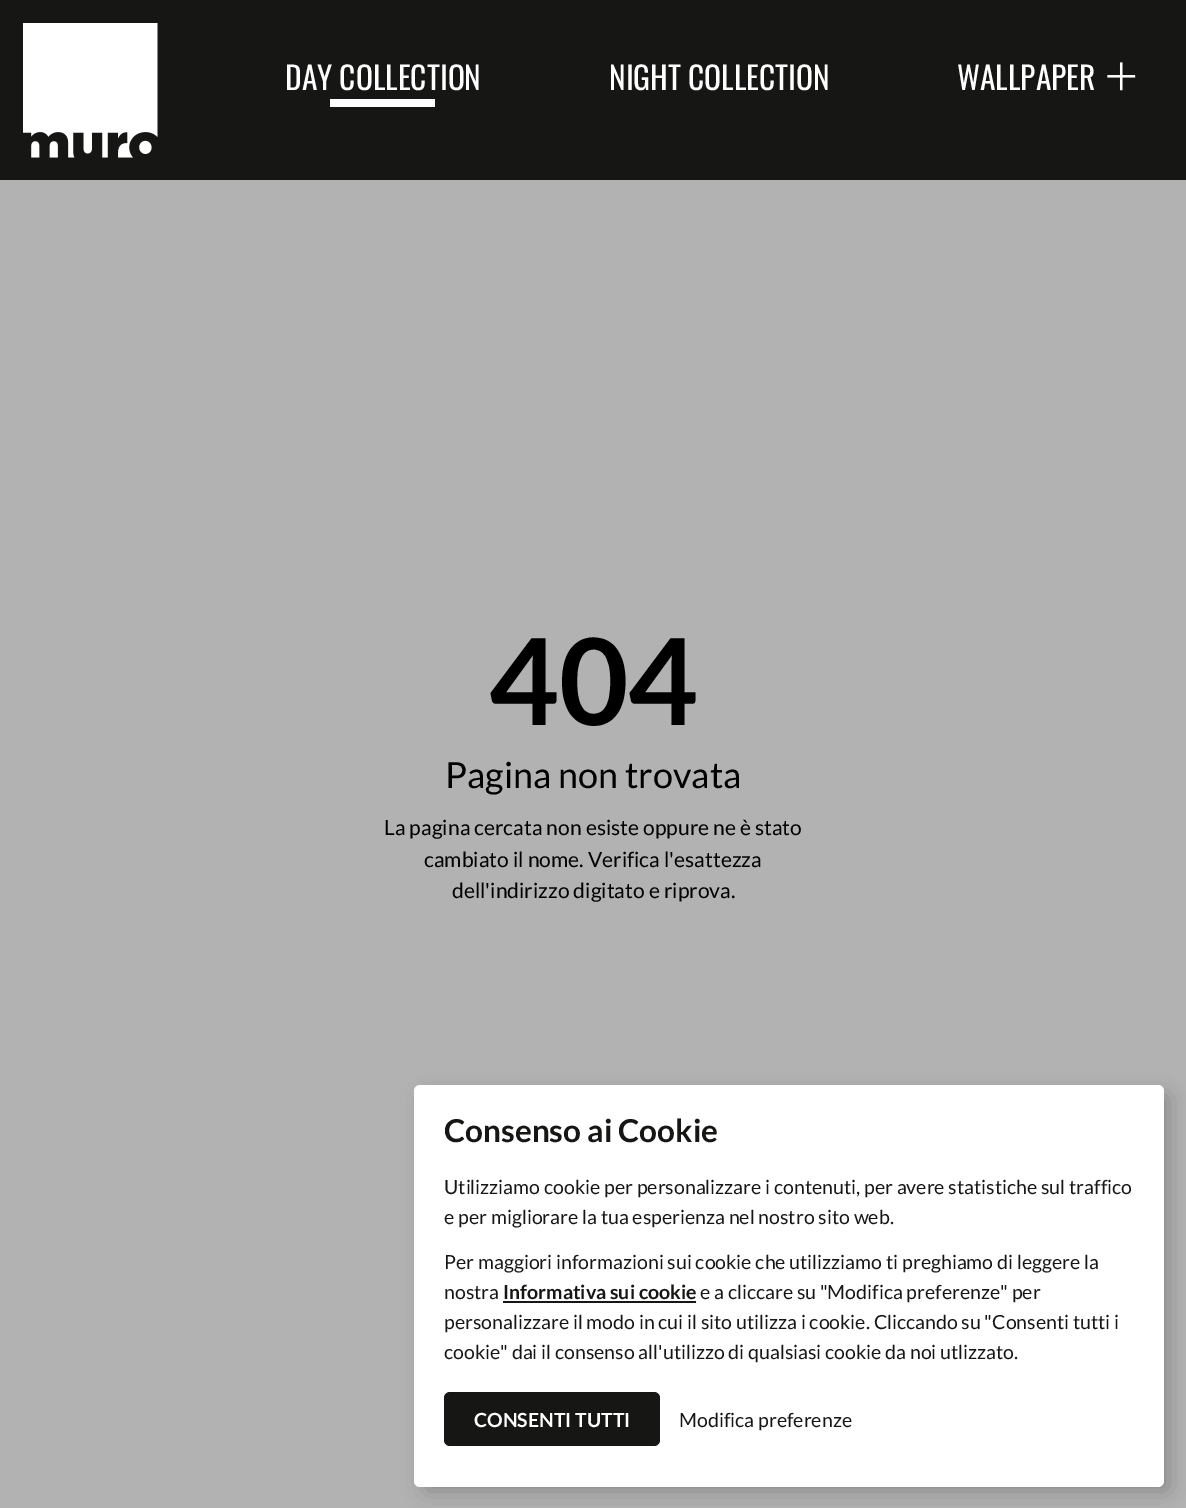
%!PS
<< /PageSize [1186 1508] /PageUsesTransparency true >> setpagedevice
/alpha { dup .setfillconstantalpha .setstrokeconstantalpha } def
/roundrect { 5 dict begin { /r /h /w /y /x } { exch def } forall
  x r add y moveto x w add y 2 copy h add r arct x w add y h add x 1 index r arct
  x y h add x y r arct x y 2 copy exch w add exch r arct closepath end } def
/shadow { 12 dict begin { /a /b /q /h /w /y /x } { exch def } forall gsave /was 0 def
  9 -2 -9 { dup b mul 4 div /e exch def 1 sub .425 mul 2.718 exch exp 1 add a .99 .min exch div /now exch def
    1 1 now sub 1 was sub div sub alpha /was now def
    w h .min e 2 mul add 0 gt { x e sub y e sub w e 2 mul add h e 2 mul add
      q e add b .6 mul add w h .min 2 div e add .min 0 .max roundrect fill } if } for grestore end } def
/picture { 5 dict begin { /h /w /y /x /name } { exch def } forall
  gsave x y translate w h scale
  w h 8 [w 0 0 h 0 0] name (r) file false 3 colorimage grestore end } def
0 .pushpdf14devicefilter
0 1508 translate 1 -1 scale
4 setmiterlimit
0.698 setgray
0 0 1186 1508 rectfill
0.086 0.086 0.082 setrgbcolor
0 0 1186 180 rectfill
(img1.rgb) 23 23 135 135 picture
/Oswald-Regular [31.5 0 0 -31.5 0 0] selectfont
1 setgray
285 90 moveto (DAY COLLECTION) show
330 99 105 8 rectfill
609 90 moveto (NIGHT COLLECTION) show
957 90 moveto (WALLPAPER) show
(img2.rgb) 1107 62 29 29 picture
/Lato-Bold [120 0 0 -120 0 0] selectfont
0 setgray
489 725 moveto (404) show
/Lato-Regular [36 0 0 -36 0 0] selectfont
445 788 moveto (Pagina non trovata) show
/Lato-Regular [21 0 0 -21 0 0] selectfont
384 835 moveto (La pagina cercata non esiste oppure ne è stato) show
424 867 moveto (cambiato il nome. Verifica l'esattezza) show
452 898 moveto (dell'indirizzo digitato e riprova.) show
0.529 setgray
425 1095 744 396 3 11 1 shadow
1 setgray
414 1085 750 402 6 roundrect fill
/Lato-Bold [31.5 0 0 -31.5 0 0] selectfont
0.086 0.086 0.082 setrgbcolor
444 1142 moveto (Consenso ai Cookie) show
/Lato-Regular [19.5 0 0 -19.5 0 0] selectfont
444 1194 moveto (Utilizziamo cookie per personalizzare i contenuti, per avere statistiche sul traffico) show
444 1224 moveto (e per migliorare la tua esperienza nel nostro sito web.) show
444 1269 moveto (Per maggiori informazioni sui cookie che utilizziamo ti preghiamo di leggere la) show
444 1299 moveto (nostra) show
/Lato-Bold [19.5 0 0 -19.5 0 0] selectfont
503 1299 moveto (Informativa sui cookie) show
503 1301 193 2 rectfill
/Lato-Regular [19.5 0 0 -19.5 0 0] selectfont
700 1299 moveto (e a cliccare su "Modifica preferenze" per) show
444 1329 moveto (personalizzare il modo in cui il sito utilizza i cookie. Cliccando su "Consenti tutti i) show
444 1359 moveto (cookie" dai il consenso all'utilizzo di qualsiasi cookie da noi utlizzato.) show
444 1392 216 54 6 roundrect fill
/Lato-Bold [19.5 0 0 -19.5 0 0] selectfont
1 setgray
474 1427 moveto (CONSENTI TUTTI) show
/Lato-Regular [19.5 0 0 -19.5 0 0] selectfont
0.086 0.086 0.082 setrgbcolor
679 1427 moveto (Modifica preferenze) show
.poppdf14devicefilter showpage
